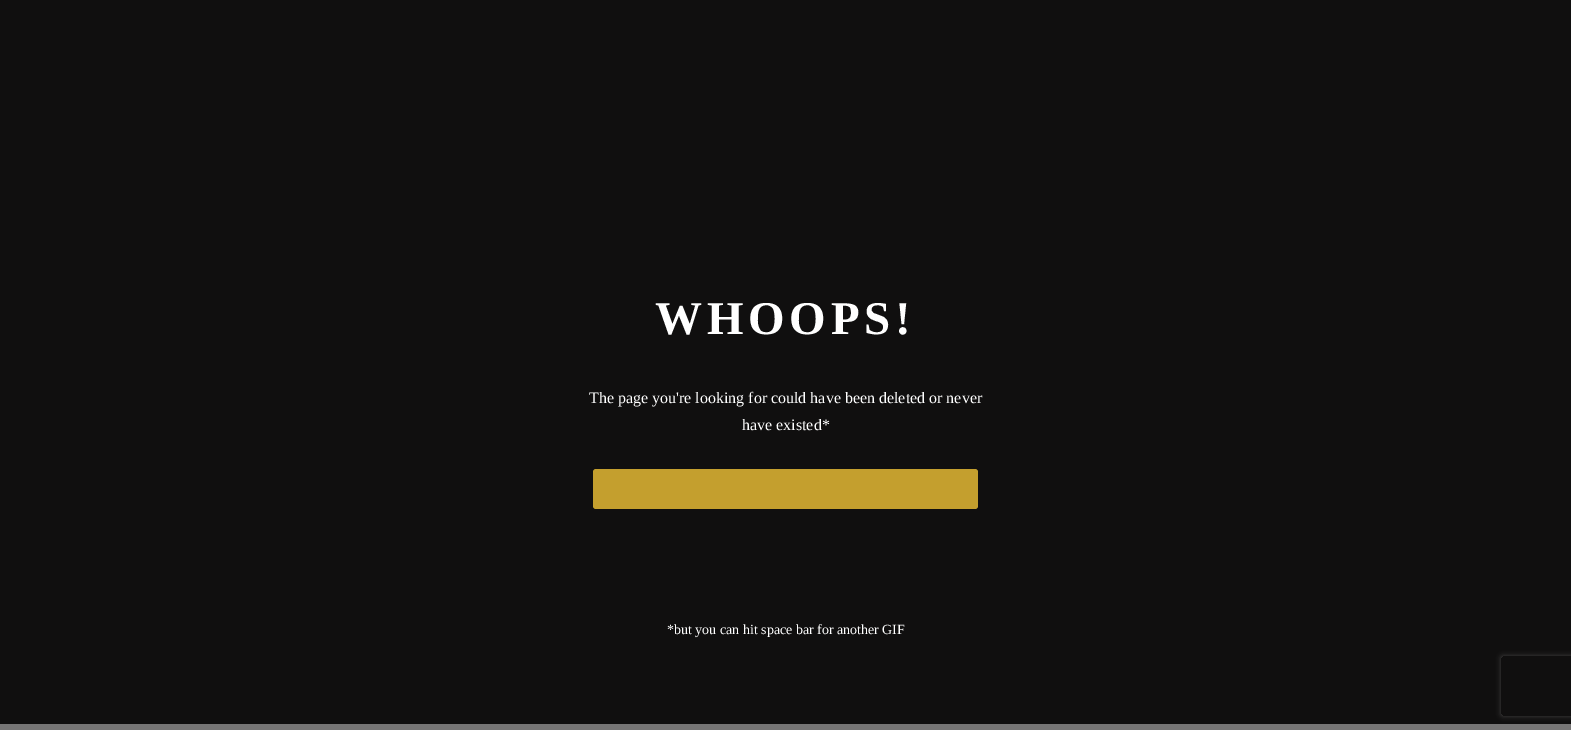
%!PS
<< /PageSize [1571 730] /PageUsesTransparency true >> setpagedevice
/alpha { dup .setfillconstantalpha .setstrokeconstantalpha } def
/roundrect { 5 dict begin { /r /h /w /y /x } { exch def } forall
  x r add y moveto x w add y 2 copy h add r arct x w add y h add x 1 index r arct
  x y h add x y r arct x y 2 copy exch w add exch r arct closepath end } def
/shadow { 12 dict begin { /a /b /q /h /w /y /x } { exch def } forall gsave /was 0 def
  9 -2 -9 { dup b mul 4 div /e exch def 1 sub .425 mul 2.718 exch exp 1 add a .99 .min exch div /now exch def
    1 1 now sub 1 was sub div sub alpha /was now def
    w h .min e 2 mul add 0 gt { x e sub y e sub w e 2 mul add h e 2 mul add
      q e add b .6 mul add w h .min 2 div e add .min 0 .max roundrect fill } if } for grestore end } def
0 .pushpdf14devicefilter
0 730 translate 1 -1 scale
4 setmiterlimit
0.463 0.459 0.459 setrgbcolor
0 0 1571 730 rectfill
0.063 0.059 0.059 setrgbcolor
0 0 1571 724 rectfill
/LiberationSerif-Bold [47 0 0 -47 0 0] selectfont
1 setgray
655 334 moveto 4.75 0 (WHOOPS!) ashow
/LiberationSerif-Regular [16 0 0 -16 0 0] selectfont
589 403 moveto (The page you're looking for could have been deleted or never) show
742 430 moveto (have existed*) show
0.769 0.624 0.18 setrgbcolor
593 469 385 40 3 roundrect fill
/LiberationSerif-Regular [14 0 0 -14 0 0] selectfont
1 setgray
667 634 moveto (*but you can hit space bar for another GIF) show
gsave
newpath 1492 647 moveto 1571 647 lineto 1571 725 lineto 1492 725 lineto closepath 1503 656 moveto 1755 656 lineto 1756 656 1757 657 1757 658 curveto 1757 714 lineto 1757 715 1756 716 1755 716 curveto 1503 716 lineto 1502 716 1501 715 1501 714 curveto 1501 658 lineto 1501 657 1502 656 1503 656 curveto closepath eoclip newpath
0.263 0.259 0.259 setrgbcolor
1501 656 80 60 2 2.5 1 shadow
grestore
.poppdf14devicefilter showpage
